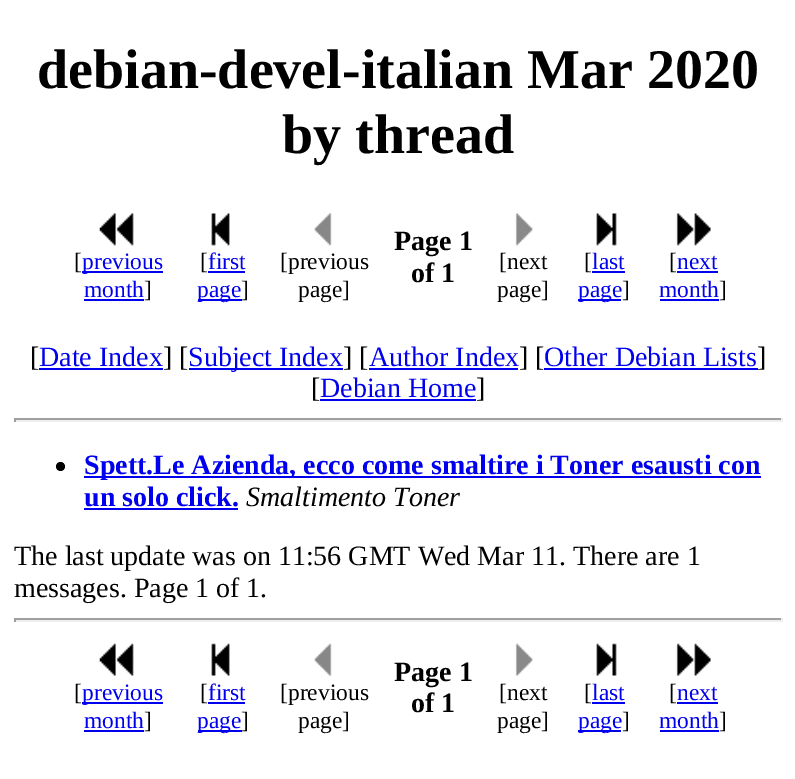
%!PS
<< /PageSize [795 779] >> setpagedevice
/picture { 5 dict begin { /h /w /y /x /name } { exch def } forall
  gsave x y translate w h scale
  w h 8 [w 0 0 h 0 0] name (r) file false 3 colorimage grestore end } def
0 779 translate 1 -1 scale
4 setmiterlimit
1 setgray
0 0 795 779 rectfill
/LiberationSerif-Bold [56 0 0 -56 0 0] selectfont
0 setgray
37 88 moveto (debian-devel-italian Mar 2020) show
282 153 moveto (by thread) show
(img1.rgb) 99 213 35 33 picture
/LiberationSerif-Regular [23.5 0 0 -23.5 0 0] selectfont
74 269 moveto ([) show
0 0 0.933 setrgbcolor
82 271 81 2 rectfill
82 269 moveto (previous) show
84 297 moveto (month) show
0 setgray
144 297 moveto (]) show
0 0 0.933 setrgbcolor
84 299 60 2 rectfill
(img2.rgb) 211 213 19 33 picture
0 setgray
200 269 moveto ([) show
0 0 0.933 setrgbcolor
208 271 37 2 rectfill
208 269 moveto (first) show
198 299 44 2 rectfill
197 297 moveto (page) show
0 setgray
241 297 moveto (]) show
(img3.rgb) 314 213 18 33 picture
280 269 moveto ([previous) show
298 297 moveto (page]) show
/LiberationSerif-Bold [28 0 0 -28 0 0] selectfont
394 250 moveto (Page 1) show
411 282 moveto (of 1) show
(img4.rgb) 515 213 18 33 picture
/LiberationSerif-Regular [23.5 0 0 -23.5 0 0] selectfont
499 269 moveto ([next) show
497 297 moveto (page]) show
(img5.rgb) 596 213 21 33 picture
584 269 moveto ([) show
0 0 0.933 setrgbcolor
592 271 33 2 rectfill
592 269 moveto (last) show
578 299 43 2 rectfill
578 297 moveto (page) show
0 setgray
622 297 moveto (]) show
(img6.rgb) 676 213 35 33 picture
669 269 moveto ([) show
0 0 0.933 setrgbcolor
677 269 moveto (next) show
677 271 41 2 rectfill
659 297 moveto (month) show
0 setgray
719 297 moveto (]) show
0 0 0.933 setrgbcolor
660 299 59 2 rectfill
/LiberationSerif-Regular [28 0 0 -28 0 0] selectfont
0 setgray
30 366 moveto ([) show
0 0 0.933 setrgbcolor
39 366 moveto (Date Index) show
39 368 124 2 rectfill
0 setgray
163 366 moveto (] [) show
0 0 0.933 setrgbcolor
189 368 154 2 rectfill
188 366 moveto (Subject Index) show
0 setgray
343 366 moveto (] [) show
0 0 0.933 setrgbcolor
369 366 moveto (Author Index) show
369 368 149 2 rectfill
0 setgray
519 366 moveto (] [) show
0 0 0.933 setrgbcolor
544 366 moveto (Other Debian Lists) show
544 368 214 2 rectfill
0 setgray
757 366 moveto (]) show
311 397 moveto ([) show
0 0 0.933 setrgbcolor
320 397 moveto (Debian Home) show
320 399 156 2 rectfill
0 setgray
476 397 moveto (]) show
0.624 setgray
14 418 768 2 rectfill
0.933 setgray
781 418 2 4 rectfill
14 420 768 2 rectfill
0.624 setgray
14 418 2 4 rectfill
0 setgray
newpath 60.5 466.5 4.5 0 360 arc closepath fill
0 0 0.933 setrgbcolor
84 476 677 2 rectfill
/LiberationSerif-Bold [28 0 0 -28 0 0] selectfont
84 474 moveto (Spett.Le Azienda, ecco come smaltire i Toner esausti con) show
84 506 moveto (un solo click.) show
84 508 154 2 rectfill
/LiberationSerif-Italic [28 0 0 -28 0 0] selectfont
0 setgray
246 506 moveto (Smaltimento Toner) show
/LiberationSerif-Regular [28 0 0 -28 0 0] selectfont
14 565 moveto (The last update was on 11:56 GMT Wed Mar 11. There are 1) show
14 597 moveto (messages. Page 1 of 1.) show
0.624 setgray
14 618 768 2 rectfill
0.933 setgray
781 618 2 4 rectfill
14 620 768 2 rectfill
0.624 setgray
14 618 2 4 rectfill
(img7.rgb) 99 643 35 33 picture
/LiberationSerif-Regular [23.5 0 0 -23.5 0 0] selectfont
0 setgray
74 700 moveto ([) show
0 0 0.933 setrgbcolor
82 702 81 2 rectfill
82 700 moveto (previous) show
84 728 moveto (month) show
0 setgray
144 728 moveto (]) show
0 0 0.933 setrgbcolor
84 730 60 2 rectfill
(img8.rgb) 211 643 19 33 picture
0 setgray
200 700 moveto ([) show
0 0 0.933 setrgbcolor
208 702 37 2 rectfill
208 700 moveto (first) show
198 730 44 2 rectfill
197 728 moveto (page) show
0 setgray
241 728 moveto (]) show
(img9.rgb) 314 643 18 33 picture
280 700 moveto ([previous) show
298 728 moveto (page]) show
/LiberationSerif-Bold [28 0 0 -28 0 0] selectfont
394 681 moveto (Page 1) show
411 712 moveto (of 1) show
(img10.rgb) 515 643 18 33 picture
/LiberationSerif-Regular [23.5 0 0 -23.5 0 0] selectfont
499 700 moveto ([next) show
497 728 moveto (page]) show
(img11.rgb) 596 643 21 33 picture
584 700 moveto ([) show
0 0 0.933 setrgbcolor
592 702 33 2 rectfill
592 700 moveto (last) show
578 730 43 2 rectfill
578 728 moveto (page) show
0 setgray
622 728 moveto (]) show
(img12.rgb) 676 643 35 33 picture
669 700 moveto ([) show
0 0 0.933 setrgbcolor
677 700 moveto (next) show
677 702 41 2 rectfill
659 728 moveto (month) show
0 setgray
719 728 moveto (]) show
0 0 0.933 setrgbcolor
660 730 59 2 rectfill
showpage
